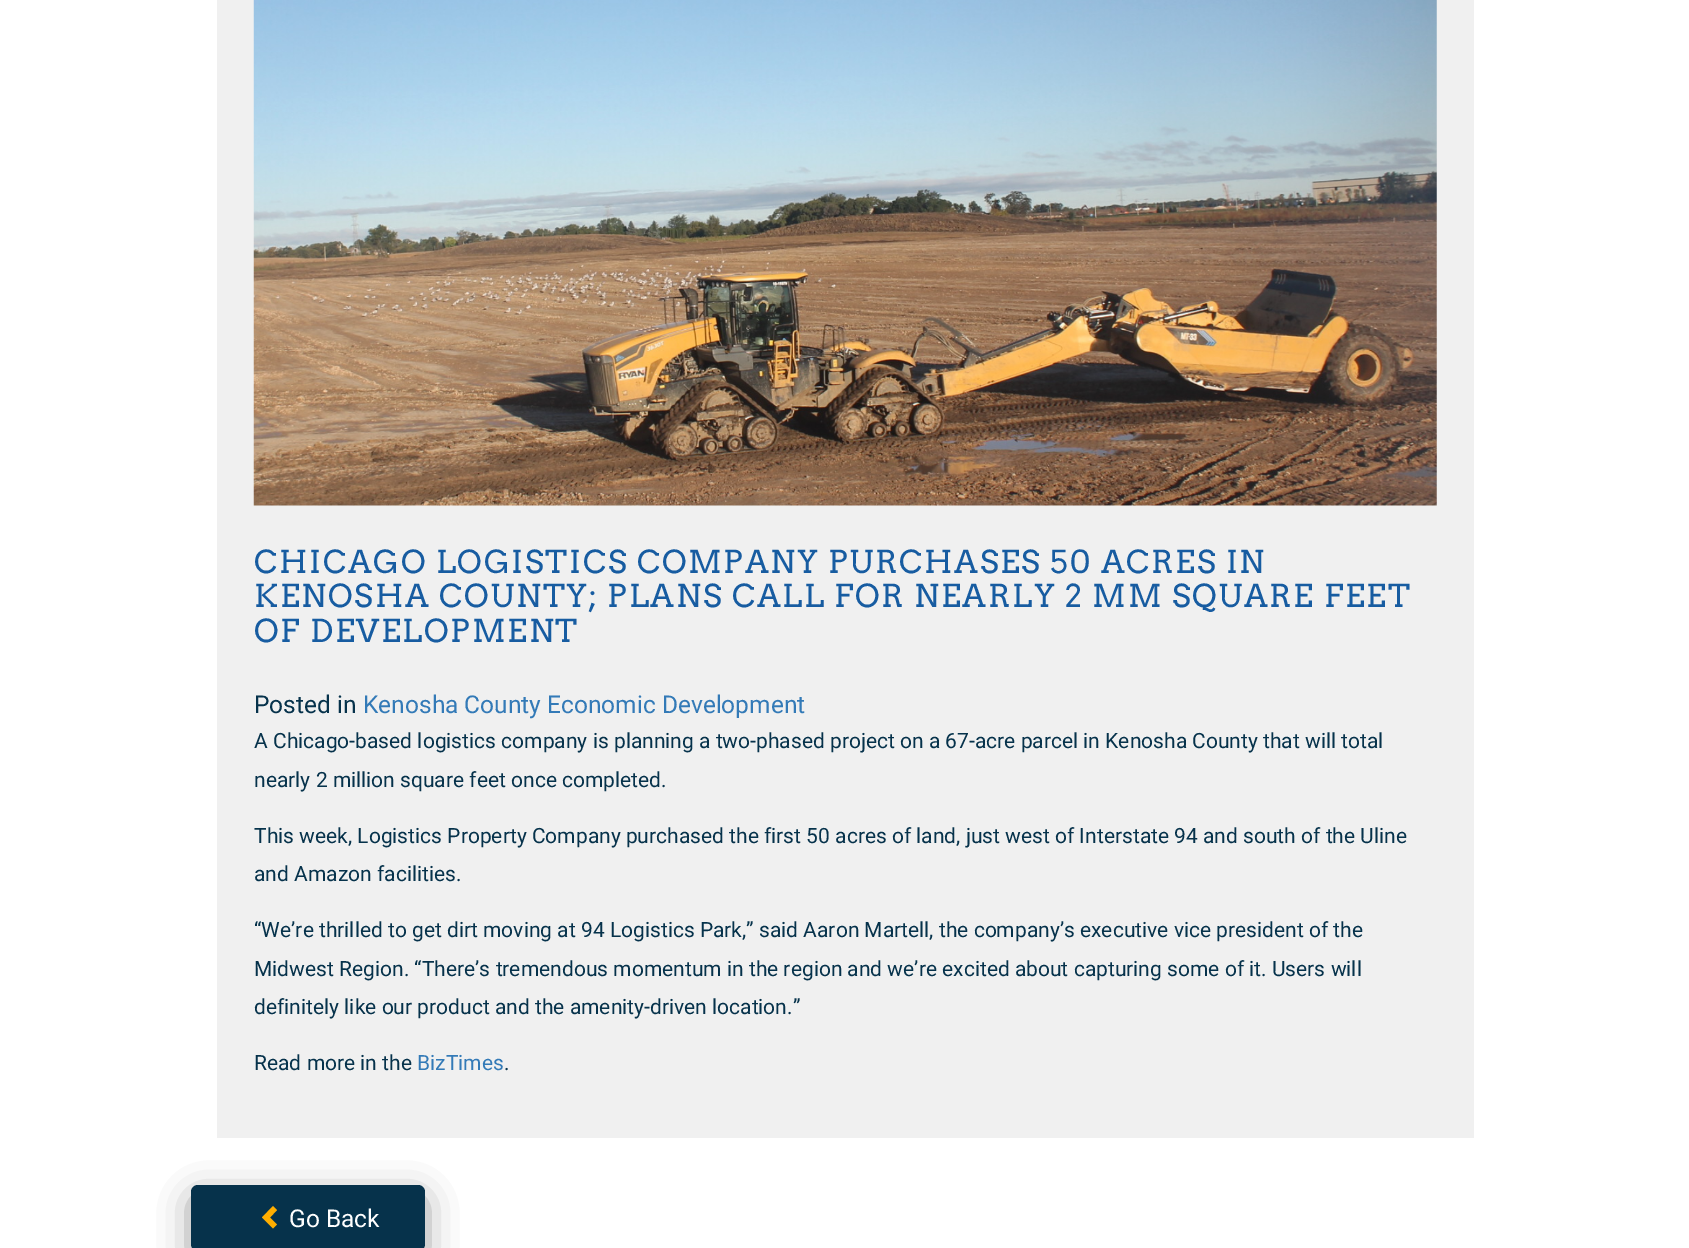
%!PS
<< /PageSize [1689 1248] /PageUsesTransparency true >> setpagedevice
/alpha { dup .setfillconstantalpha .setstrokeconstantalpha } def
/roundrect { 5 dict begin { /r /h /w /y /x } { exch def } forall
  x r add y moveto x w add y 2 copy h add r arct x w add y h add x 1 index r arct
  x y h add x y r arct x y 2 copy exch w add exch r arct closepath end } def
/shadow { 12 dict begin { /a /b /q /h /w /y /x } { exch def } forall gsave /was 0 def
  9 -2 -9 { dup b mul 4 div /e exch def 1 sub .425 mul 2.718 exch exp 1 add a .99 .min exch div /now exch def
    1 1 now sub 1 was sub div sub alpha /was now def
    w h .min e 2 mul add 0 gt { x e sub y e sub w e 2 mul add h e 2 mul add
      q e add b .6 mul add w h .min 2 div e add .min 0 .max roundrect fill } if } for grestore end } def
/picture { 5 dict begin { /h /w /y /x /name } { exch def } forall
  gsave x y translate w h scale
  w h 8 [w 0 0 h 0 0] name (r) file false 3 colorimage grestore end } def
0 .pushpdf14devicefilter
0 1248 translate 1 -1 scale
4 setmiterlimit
1 setgray
0 0 1689 1248 rectfill
0.941 setgray
217 0 1257 1138 rectfill
(img1.rgb) 253 0 1184 506 picture
/Arvo-Regular [31.5 0 0 -31.5 0 0] selectfont
0.09 0.361 0.631 setrgbcolor
254 573 moveto 1.75 0 (CHICAGO LOGISTICS COMPANY PURCHASES 50 ACRES IN) ashow
254 607 moveto 1.75 0 (KENOSHA COUNTY; PLANS CALL FOR NEARLY 2 MM SQUARE FEET) ashow
254 642 moveto 1.75 0 (OF DEVELOPMENT) ashow
/Roboto-Regular [24.5 0 0 -24.5 0 0] selectfont
0.024 0.196 0.294 setrgbcolor
254 713 moveto (Posted in) show
0.2 0.478 0.718 setrgbcolor
363 713 moveto (Kenosha County Economic Development) show
/Roboto-Regular [21 0 0 -21 0 0] selectfont
0.024 0.196 0.294 setrgbcolor
254 748 moveto (A Chicago-based logistics company is planning a two-phased project on a 67-acre parcel in Kenosha County that will total) show
254 787 moveto (nearly 2 million square feet once completed.) show
254 843 moveto (This week, Logistics Property Company purchased the first 50 acres of land, just west of Interstate 94 and south of the Uline) show
254 881 moveto (and Amazon facilities.) show
254 937 moveto (“We’re thrilled to get dirt moving at 94 Logistics Park,” said Aaron Martell, the company’s executive vice president of the) show
254 976 moveto (Midwest Region. “There’s tremendous momentum in the region and we’re excited about capturing some of it. Users will) show
254 1014 moveto (definitely like our product and the amenity-driven location.”) show
254 1070 moveto (Read more in the) show
0.2 0.478 0.718 setrgbcolor
417 1070 moveto (BizTimes) show
0.024 0.196 0.294 setrgbcolor
504 1070 moveto (.) show
0 setgray
198 1202 220 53 0 18.5 0.6 shadow
0.024 0.196 0.294 setrgbcolor
191 1185 234 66 7 roundrect fill
1 0.682 0 setrgbcolor
newpath 277 1210 moveto 270 1217.5 lineto 277 1224.5 lineto 273 1228.5 lineto 262 1217.5 lineto 273 1206 lineto closepath fill
/Roboto-Regular [24.5 0 0 -24.5 0 0] selectfont
1 setgray
289 1227 moveto (Go Back) show
.poppdf14devicefilter showpage
